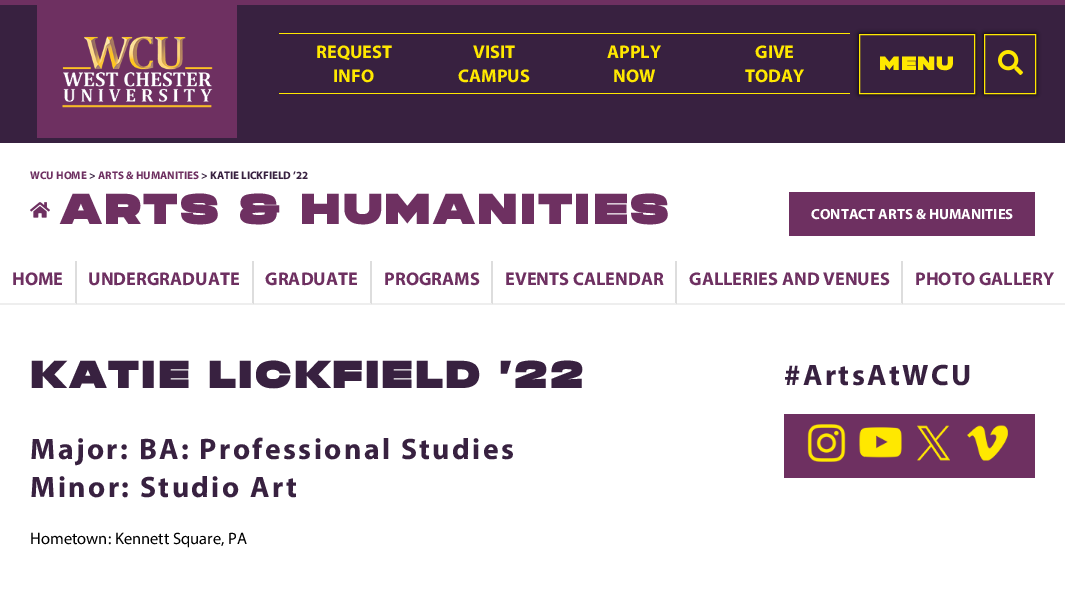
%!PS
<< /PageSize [1065 609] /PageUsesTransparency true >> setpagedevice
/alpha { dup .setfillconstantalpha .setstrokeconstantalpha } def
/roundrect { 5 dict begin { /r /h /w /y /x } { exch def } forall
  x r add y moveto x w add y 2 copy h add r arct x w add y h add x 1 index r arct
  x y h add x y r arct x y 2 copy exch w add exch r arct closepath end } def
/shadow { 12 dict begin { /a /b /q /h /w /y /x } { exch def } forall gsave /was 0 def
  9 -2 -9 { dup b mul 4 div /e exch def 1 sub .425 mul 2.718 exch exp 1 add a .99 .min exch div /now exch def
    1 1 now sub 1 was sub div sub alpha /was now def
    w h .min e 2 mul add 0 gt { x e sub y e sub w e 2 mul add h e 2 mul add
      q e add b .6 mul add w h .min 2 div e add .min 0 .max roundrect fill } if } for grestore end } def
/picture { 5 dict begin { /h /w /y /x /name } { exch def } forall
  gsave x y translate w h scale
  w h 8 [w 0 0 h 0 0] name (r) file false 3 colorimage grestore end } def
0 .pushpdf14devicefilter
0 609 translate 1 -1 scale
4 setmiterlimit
0.22 0.129 0.251 setrgbcolor
0 0 1065 609 rectfill
0.431 0.188 0.38 setrgbcolor
0 0 1065 5 rectfill
(img1.rgb) 37 5 200 133 picture
1 0.91 0 setrgbcolor
279 33 571 1 rectfill
279 93 571 1 rectfill
/Myriad-Bold [18.4 0 0 -18.4 0 0] selectfont
316 58 moveto (REQUEST) show
333 82 moveto (INFO) show
473 58 moveto (VISIT) show
458 82 moveto (CAMPUS) show
607 58 moveto (APPLY) show
613 82 moveto (NOW) show
755 58 moveto (GIVE) show
745 82 moveto (TODAY) show
gsave
newpath 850 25 moveto 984 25 lineto 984 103 lineto 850 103 lineto closepath 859 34 moveto 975 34 lineto 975 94 lineto 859 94 lineto closepath eoclip newpath
0 setgray
859 34 116 60 0 2.5 1 shadow
grestore
859.5 34.5 115 59 rectstroke
/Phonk-Bold [18.4 0 0 -18.4 0 0] selectfont
879 70 moveto 1.5 0 (MENU) ashow
gsave
newpath 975 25 moveto 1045 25 lineto 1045 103 lineto 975 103 lineto closepath 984 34 moveto 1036 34 lineto 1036 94 lineto 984 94 lineto closepath eoclip newpath
0 setgray
984 34 52 60 0 2.5 1 shadow
grestore
984.5 34.5 51 59 rectstroke
(img2.rgb) 998 50 25 25 picture
1 setgray
0 143 1065 466 rectfill
/Myriad-Bold [11 0 0 -11 0 0] selectfont
0.431 0.188 0.38 setrgbcolor
30 179 moveto (WCU HOME) show
0.22 0.129 0.251 setrgbcolor
89 179 moveto (>) show
0.431 0.188 0.38 setrgbcolor
98 179 moveto (ARTS & HUMANITIES) show
0.22 0.129 0.251 setrgbcolor
201 179 moveto (> KATIE LICKFIELD ’22) show
(img3.rgb) 30 202 20 16 picture
/Phonk-Bold [41.4 0 0 -41.4 0 0] selectfont
0.431 0.188 0.38 setrgbcolor
60 224 moveto 3.25 0 (ARTS & HUMANITIES) ashow
789 192 246 44 rectfill
/Myriad-Bold [14.75 0 0 -14.75 0 0] selectfont
1 setgray
811 219 moveto (CONTACT ARTS & HUMANITIES) show
0.867 setgray
newpath 77 261 moveto 77 305 lineto 75 303 lineto 75 261 lineto closepath fill
0.933 setgray
newpath 77 305 moveto 0 305 lineto 0 303 lineto 75 303 lineto closepath fill
/Myriad-Bold [18.4 0 0 -18.4 0 0] selectfont
0.431 0.188 0.38 setrgbcolor
12 285 moveto (HOME) show
0.867 setgray
newpath 254 261 moveto 254 305 lineto 252 303 lineto 252 261 lineto closepath fill
0.933 setgray
newpath 254 305 moveto 77 305 lineto 77 303 lineto 252 303 lineto closepath fill
0.431 0.188 0.38 setrgbcolor
88 285 moveto (UNDERGRADUATE) show
0.867 setgray
newpath 372 261 moveto 372 305 lineto 370 303 lineto 370 261 lineto closepath fill
0.933 setgray
newpath 372 305 moveto 254 305 lineto 254 303 lineto 370 303 lineto closepath fill
0.431 0.188 0.38 setrgbcolor
265 285 moveto (GRADUATE) show
0.867 setgray
newpath 493 261 moveto 493 305 lineto 491 303 lineto 491 261 lineto closepath fill
0.933 setgray
newpath 493 305 moveto 372 305 lineto 372 303 lineto 491 303 lineto closepath fill
0.431 0.188 0.38 setrgbcolor
384 285 moveto (PROGRAMS) show
0.867 setgray
newpath 677 261 moveto 677 305 lineto 675 303 lineto 675 261 lineto closepath fill
0.933 setgray
newpath 677 305 moveto 493 305 lineto 493 303 lineto 675 303 lineto closepath fill
0.431 0.188 0.38 setrgbcolor
505 285 moveto (EVENTS CALENDAR) show
0.867 setgray
newpath 903 261 moveto 903 305 lineto 901 303 lineto 901 261 lineto closepath fill
0.933 setgray
newpath 903 305 moveto 677 305 lineto 677 303 lineto 901 303 lineto closepath fill
0.431 0.188 0.38 setrgbcolor
689 285 moveto (GALLERIES AND VENUES) show
0.933 setgray
903 303 162 2 rectfill
0.431 0.188 0.38 setrgbcolor
915 285 moveto (PHOTO GALLERY) show
/Phonk-Bold [37.25 0 0 -37.25 0 0] selectfont
0.22 0.129 0.251 setrgbcolor
30 388 moveto 3.25 0 (KATIE LICKFIELD ’22) ashow
/Myriad-Bold [29.75 0 0 -29.75 0 0] selectfont
30 459 moveto 2.4 0 (Major: BA: Professional Studies) ashow
30 497 moveto 2.4 0 (Minor: Studio Art) ashow
/Myriad-Regular [16.5 0 0 -16.5 0 0] selectfont
0 setgray
30 544 moveto (Hometown: Kennett Square, PA) show
/Myriad-Bold [29.75 0 0 -29.75 0 0] selectfont
0.22 0.129 0.251 setrgbcolor
784 385 moveto 2.4 0 (#ArtsAtWCU) ashow
0.431 0.188 0.38 setrgbcolor
784 414 251 64 rectfill
(img4.rgb) 807 424 39 38 picture
(img5.rgb) 859 427 43 31 picture
(img6.rgb) 917 425 33 36 picture
(img7.rgb) 967 425 41 36 picture
.poppdf14devicefilter showpage
